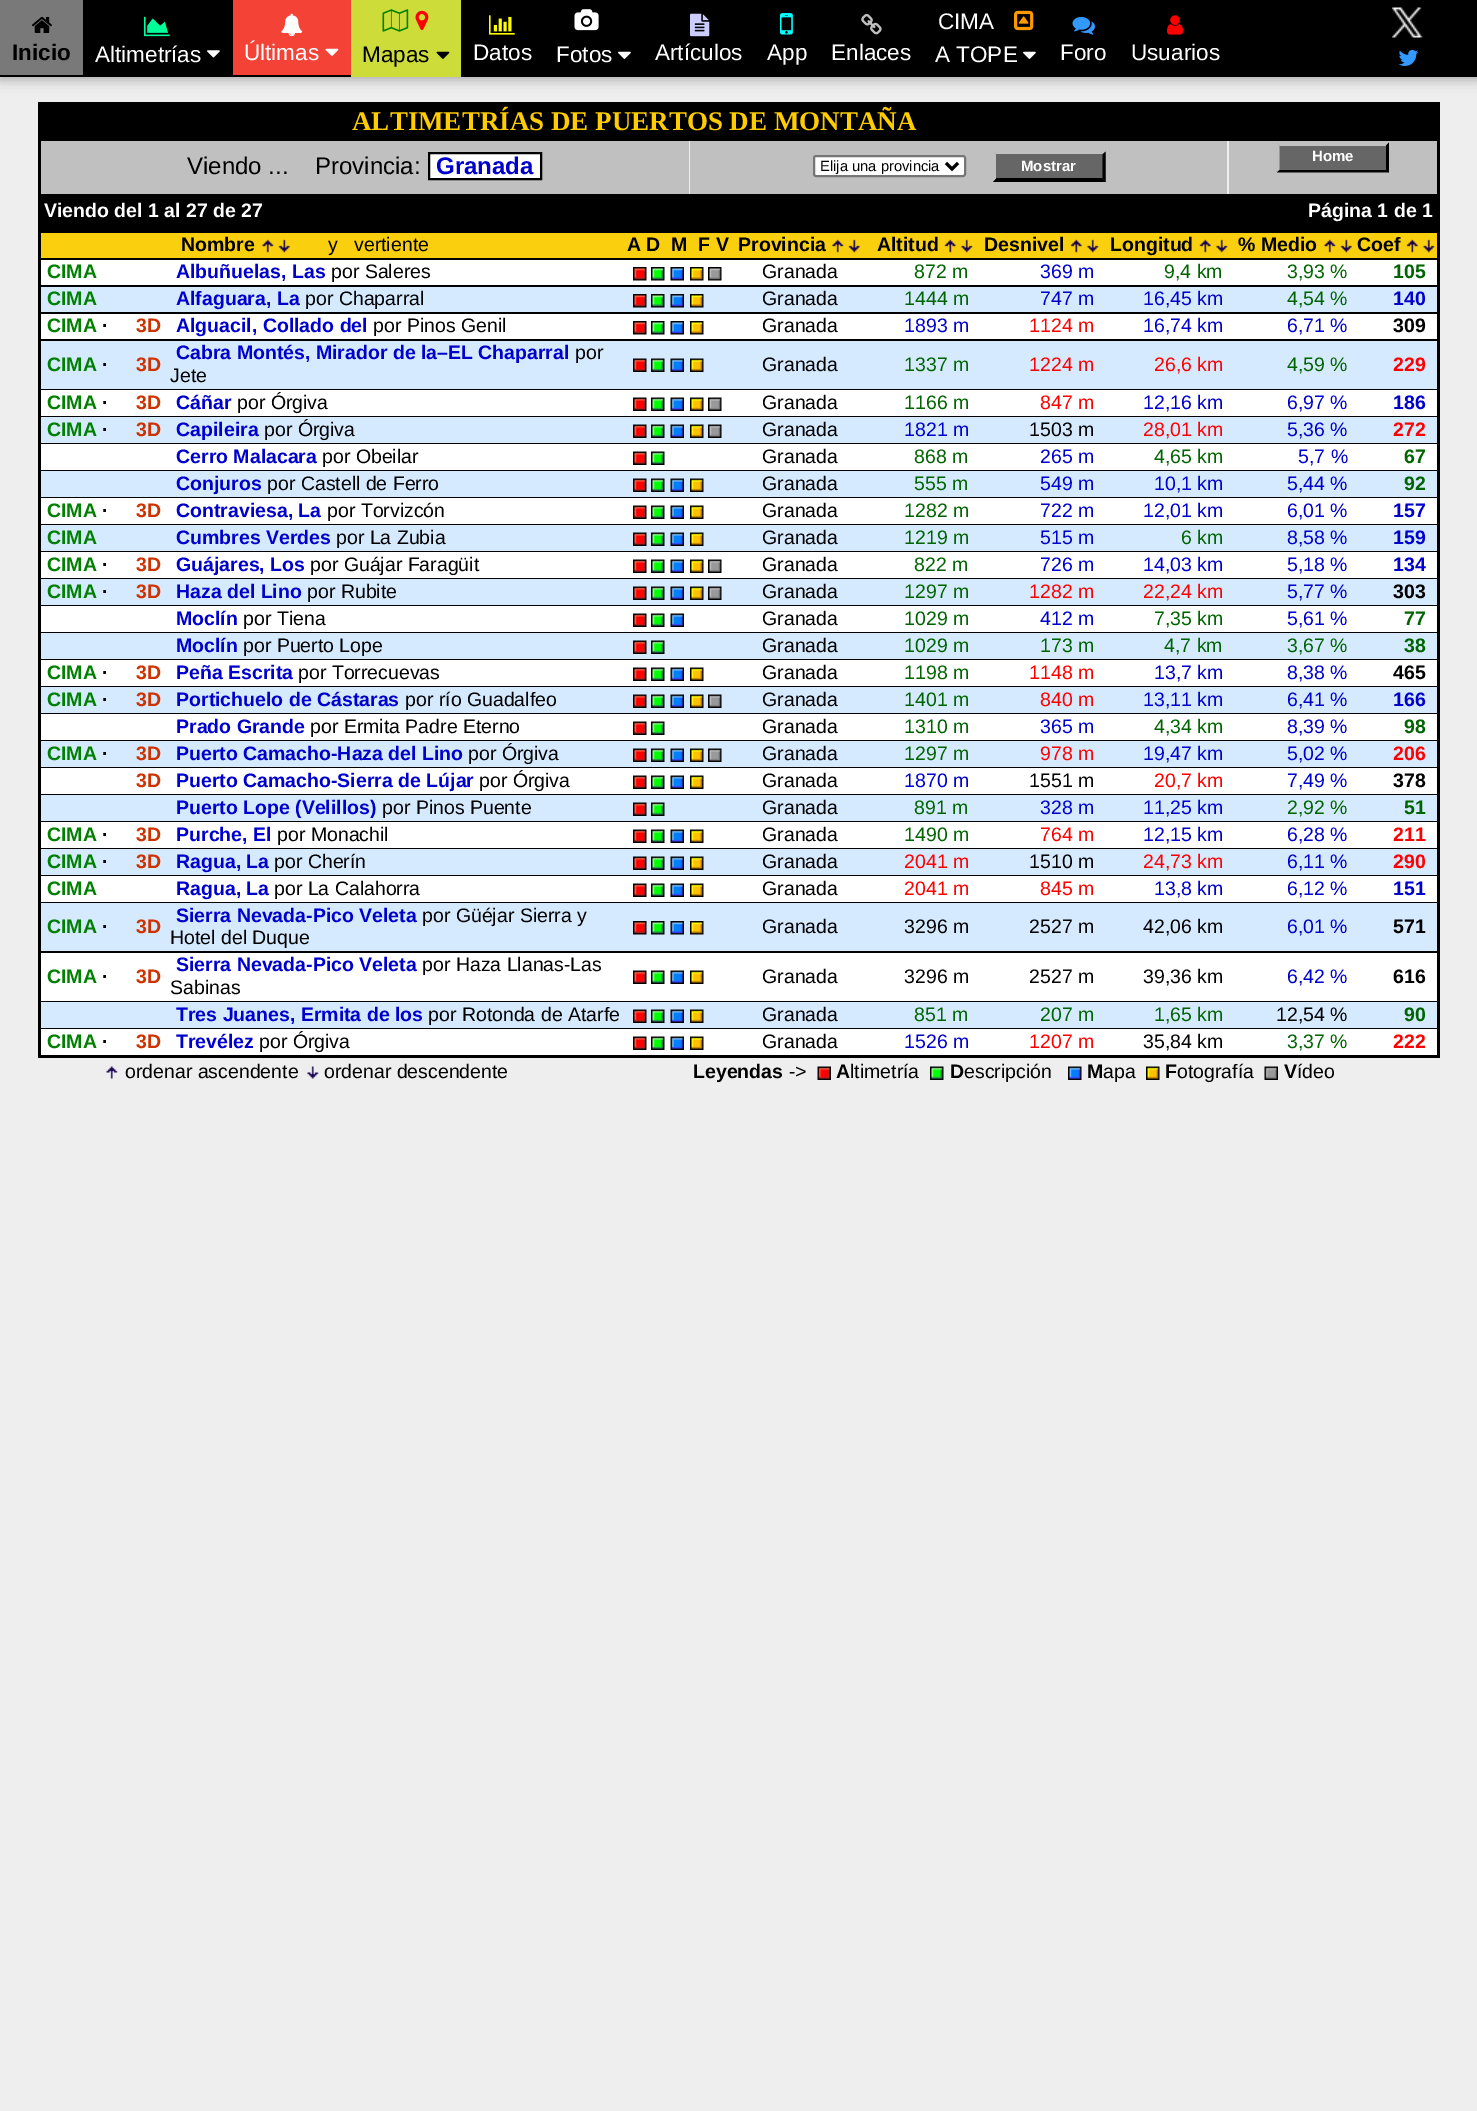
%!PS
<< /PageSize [1477 2111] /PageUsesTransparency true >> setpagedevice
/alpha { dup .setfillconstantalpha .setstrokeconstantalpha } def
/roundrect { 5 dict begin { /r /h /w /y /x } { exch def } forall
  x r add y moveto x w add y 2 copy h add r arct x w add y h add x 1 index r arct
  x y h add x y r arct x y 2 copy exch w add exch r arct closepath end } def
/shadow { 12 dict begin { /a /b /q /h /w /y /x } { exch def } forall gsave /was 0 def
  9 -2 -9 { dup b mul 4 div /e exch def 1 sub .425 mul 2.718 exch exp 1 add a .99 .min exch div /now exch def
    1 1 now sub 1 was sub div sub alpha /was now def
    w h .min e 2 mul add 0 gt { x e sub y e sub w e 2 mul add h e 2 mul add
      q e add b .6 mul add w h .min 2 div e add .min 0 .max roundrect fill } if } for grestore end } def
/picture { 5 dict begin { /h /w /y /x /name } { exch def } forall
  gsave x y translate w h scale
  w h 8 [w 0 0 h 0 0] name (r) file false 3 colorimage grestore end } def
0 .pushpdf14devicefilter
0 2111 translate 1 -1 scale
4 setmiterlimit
0.933 setgray
0 0 1477 2111 rectfill
0 setgray
38 102 1402 956 rectfill
0 3 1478 77 0 7.5 0.12 shadow
0 3 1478 77 0 4 0.16 shadow
0 0 1477 77 rectfill
0.475 setgray
0 0 83 75 rectfill
(img1.rgb) 31 16 21 17 picture
/LiberationSans-Bold [22.5 0 0 -22.5 0 0] selectfont
0 setgray
12 60 moveto (Inicio) show
(img2.rgb) 144 16 26 21 picture
/LiberationSans-Regular [22.5 0 0 -22.5 0 0] selectfont
1 setgray
95 62 moveto (Altimetrías) show
(img3.rgb) 207 50 13 8 picture
0.957 0.263 0.212 setrgbcolor
233 0 118 75 rectfill
(img4.rgb) 281 13 22 24 picture
1 setgray
244 60 moveto (Últimas) show
(img5.rgb) 325 48 14 8 picture
0.804 0.863 0.224 setrgbcolor
351 0 110 77 rectfill
(img6.rgb) 382 9 27 23 picture
(img7.rgb) 415 10 14 21 picture
0 setgray
362 62 moveto (Mapas) show
(img8.rgb) 436 51 14 8 picture
(img9.rgb) 489 15 26 20 picture
1 setgray
473 60 moveto (Datos) show
(img10.rgb) 574 9 25 22 picture
556 62 moveto (Fotos) show
(img11.rgb) 618 51 13 8 picture
(img12.rgb) 690 13 20 24 picture
655 60 moveto (Artículos) show
(img13.rgb) 780 13 13 22 picture
767 60 moveto (App) show
(img14.rgb) 861 13 21 22 picture
831 60 moveto (Enlaces) show
938 29 moveto (CIMA) show
(img15.rgb) 1014 10 20 21 picture
935 62 moveto (A TOPE) show
(img11.rgb) 1023 51 13 8 picture
(img16.rgb) 1072 16 23 19 picture
1060 60 moveto (Foro) show
(img17.rgb) 1167 15 17 20 picture
1131 60 moveto (Usuarios) show
(img18.rgb) 1392 7 31 31 picture
(img19.rgb) 1398 49 21 17 picture
/LiberationSerif-Bold [27 0 0 -27 0 0] selectfont
1 0.8 0 setrgbcolor
352 130 moveto (ALTIMETRÍAS DE PUERTOS DE MONTAÑA) show
0.933 setgray
689 141 540 53 rectfill
0.753 setgray
41 141 648 53 rectfill
/LiberationSans-Regular [24 0 0 -24 0 0] selectfont
0 setgray
187 174 moveto (Viendo ...) show
315 174 moveto (Provincia:) show
1 setgray
newpath 429 153 moveto 541 153 lineto 541 179 lineto 429 179 lineto closepath gsave fill grestore
0 setgray
2 setlinewidth
stroke
/LiberationSans-Bold [24 0 0 -24 0 0] selectfont
0 0 0.8 setrgbcolor
436 174 moveto (Granada) show
0.753 setgray
690 141 537 53 rectfill
1 setgray
814 156 151 20 2 roundrect gsave fill grestore
0.463 setgray
stroke
0 setgray
3 setlinewidth
newpath 946 163 moveto 952 169 lineto 958 163 lineto stroke
/LiberationSans-Regular [14.75 0 0 -14.75 0 0] selectfont
820 171 moveto (Elija una provincia) show
0.4 setgray
993 152 113 30 rectfill
0.753 setgray
newpath 993 152 moveto 1106 152 lineto 1102 154 lineto 996 154 lineto closepath fill
0 setgray
newpath 1105.5 151.5 moveto 1105.5 181.5 lineto 1102.5 178.5 lineto 1102.5 154.5 lineto closepath fill
newpath 1106 182 moveto 993 182 lineto 996 178 lineto 1102 178 lineto closepath fill
0.753 setgray
newpath 993 181.5 moveto 993 151.5 lineto 996 154.5 lineto 996 178.5 lineto closepath fill
/LiberationSans-Bold [15 0 0 -15 0 0] selectfont
1 setgray
1021 171 moveto (Mostrar) show
0.753 setgray
1229 141 208 53 rectfill
0.4 setgray
1277 143 112 30 rectfill
0.753 setgray
newpath 1276 142 moveto 1389 142 lineto 1386 146 lineto 1280 146 lineto closepath fill
0 setgray
newpath 1389 142.5 moveto 1389 172.5 lineto 1386 169.5 lineto 1386 145.5 lineto closepath fill
newpath 1389 172 moveto 1276 172 lineto 1280 170 lineto 1386 170 lineto closepath fill
0.753 setgray
newpath 1276.5 172.5 moveto 1276.5 142.5 lineto 1279.5 145.5 lineto 1279.5 169.5 lineto closepath fill
1 setgray
1312 161 moveto (Home) show
/LiberationSans-Bold [19.5 0 0 -19.5 0 0] selectfont
44 217 moveto (Viendo del 1 al 27 de 27) show
1308 217 moveto (Página 1 de 1) show
0.98 0.816 0.055 setrgbcolor
41 233 1396 25 rectfill
0 setgray
181 251 moveto (Nombre) show
(img20.rgb) 262 239 12 14 picture
(img21.rgb) 278 239 12 14 picture
/LiberationSans-Regular [19.5 0 0 -19.5 0 0] selectfont
328 251 moveto (y   vertiente) show
/LiberationSans-Bold [19.5 0 0 -19.5 0 0] selectfont
627 251 moveto (A D  M  F V) show
738 251 moveto (Provincia) show
(img22.rgb) 832 239 12 14 picture
(img23.rgb) 848 239 12 14 picture
877 251 moveto (Altitud) show
(img24.rgb) 944 239 12 14 picture
(img25.rgb) 961 239 12 14 picture
984 251 moveto (Desnivel) show
(img24.rgb) 1070 239 12 14 picture
(img25.rgb) 1087 239 12 14 picture
1110 251 moveto (Longitud) show
(img26.rgb) 1199 239 12 14 picture
(img25.rgb) 1216 239 12 14 picture
1238 251 moveto (% Medio) show
(img20.rgb) 1324 239 12 14 picture
(img21.rgb) 1340 239 12 14 picture
1357 251 moveto (Coef) show
(img26.rgb) 1406 239 12 14 picture
(img27.rgb) 1423 239 12 14 picture
1 setgray
41 260 1396 25 rectfill
0 0.502 0 setrgbcolor
47 278 moveto (CIMA) show
0 0 0.8 setrgbcolor
176 278 moveto (Albuñuelas, Las) show
/LiberationSans-Regular [19.5 0 0 -19.5 0 0] selectfont
0 setgray
331 278 moveto (por Saleres) show
(img28.rgb) 633 267 14 14 picture
(img29.rgb) 651 267 14 14 picture
(img30.rgb) 670 267 14 14 picture
(img31.rgb) 690 267 14 14 picture
(img32.rgb) 708 267 14 14 picture
762 278 moveto (Granada) show
0 0.392 0 setrgbcolor
914 278 moveto (872 m) show
0 0 0.8 setrgbcolor
1040 278 moveto (369 m) show
0 0.392 0 setrgbcolor
1164 278 moveto (9,4 km) show
1287 278 moveto (3,93 %) show
/LiberationSans-Bold [19.5 0 0 -19.5 0 0] selectfont
1393 278 moveto (105) show
0.835 0.918 1 setrgbcolor
41 287 1396 25 rectfill
0 0.502 0 setrgbcolor
47 305 moveto (CIMA) show
0 0 0.8 setrgbcolor
176 305 moveto (Alfaguara, La) show
/LiberationSans-Regular [19.5 0 0 -19.5 0 0] selectfont
0 setgray
305 305 moveto (por Chaparral) show
(img33.rgb) 633 294 14 14 picture
(img34.rgb) 651 294 14 14 picture
(img35.rgb) 670 294 14 14 picture
(img36.rgb) 690 294 14 14 picture
762 305 moveto (Granada) show
0 0.392 0 setrgbcolor
904 305 moveto (1444 m) show
0 0 0.8 setrgbcolor
1040 305 moveto (747 m) show
1143 305 moveto (16,45 km) show
0 0.392 0 setrgbcolor
1287 305 moveto (4,54 %) show
/LiberationSans-Bold [19.5 0 0 -19.5 0 0] selectfont
0 0 0.8 setrgbcolor
1393 305 moveto (140) show
1 setgray
41 314 1396 25 rectfill
0 0.502 0 setrgbcolor
47 332 moveto (CIMA) show
0 setgray
102 332 moveto (·) show
0.8 0.2 0 setrgbcolor
136 332 moveto (3D) show
0 0 0.8 setrgbcolor
176 332 moveto (Alguacil, Collado del) show
/LiberationSans-Regular [19.5 0 0 -19.5 0 0] selectfont
0 setgray
373 332 moveto (por Pinos Genil) show
(img28.rgb) 633 321 14 14 picture
(img29.rgb) 651 321 14 14 picture
(img30.rgb) 670 321 14 14 picture
(img31.rgb) 690 321 14 14 picture
762 332 moveto (Granada) show
0 0 0.8 setrgbcolor
904 332 moveto (1893 m) show
1 0 0 setrgbcolor
1029 332 moveto (1124 m) show
0 0 0.8 setrgbcolor
1143 332 moveto (16,74 km) show
1287 332 moveto (6,71 %) show
/LiberationSans-Bold [19.5 0 0 -19.5 0 0] selectfont
0 setgray
1393 332 moveto (309) show
0.835 0.918 1 setrgbcolor
41 341 1396 48 rectfill
0 0.502 0 setrgbcolor
47 371 moveto (CIMA) show
0 setgray
102 371 moveto (·) show
0.8 0.2 0 setrgbcolor
136 371 moveto (3D) show
0 0 0.8 setrgbcolor
176 359 moveto (Cabra Montés, Mirador de la–EL Chaparral) show
/LiberationSans-Regular [19.5 0 0 -19.5 0 0] selectfont
0 setgray
575 359 moveto (por) show
170 382 moveto (Jete) show
(img37.rgb) 633 358 14 14 picture
(img38.rgb) 651 358 14 14 picture
(img39.rgb) 670 358 14 14 picture
(img40.rgb) 690 358 14 14 picture
762 371 moveto (Granada) show
0 0.392 0 setrgbcolor
904 371 moveto (1337 m) show
1 0 0 setrgbcolor
1029 371 moveto (1224 m) show
1154 371 moveto (26,6 km) show
0 0.392 0 setrgbcolor
1287 371 moveto (4,59 %) show
/LiberationSans-Bold [19.5 0 0 -19.5 0 0] selectfont
1 0 0 setrgbcolor
1393 371 moveto (229) show
1 setgray
41 390 1396 26 rectfill
0 0.502 0 setrgbcolor
47 409 moveto (CIMA) show
0 setgray
102 409 moveto (·) show
0.8 0.2 0 setrgbcolor
136 409 moveto (3D) show
0 0 0.8 setrgbcolor
176 409 moveto (Cáñar) show
/LiberationSans-Regular [19.5 0 0 -19.5 0 0] selectfont
0 setgray
237 409 moveto (por Órgiva) show
(img41.rgb) 633 397 14 14 picture
(img42.rgb) 651 397 14 14 picture
(img43.rgb) 670 397 14 14 picture
(img44.rgb) 690 397 14 14 picture
(img45.rgb) 708 397 14 14 picture
762 409 moveto (Granada) show
0 0.392 0 setrgbcolor
904 409 moveto (1166 m) show
1 0 0 setrgbcolor
1040 409 moveto (847 m) show
0 0 0.8 setrgbcolor
1143 409 moveto (12,16 km) show
1287 409 moveto (6,97 %) show
/LiberationSans-Bold [19.5 0 0 -19.5 0 0] selectfont
1393 409 moveto (186) show
0.835 0.918 1 setrgbcolor
41 417 1396 26 rectfill
0 0.502 0 setrgbcolor
47 436 moveto (CIMA) show
0 setgray
102 436 moveto (·) show
0.8 0.2 0 setrgbcolor
136 436 moveto (3D) show
0 0 0.8 setrgbcolor
176 436 moveto (Capileira) show
/LiberationSans-Regular [19.5 0 0 -19.5 0 0] selectfont
0 setgray
264 436 moveto (por Órgiva) show
(img37.rgb) 633 424 14 14 picture
(img38.rgb) 651 424 14 14 picture
(img39.rgb) 670 424 14 14 picture
(img40.rgb) 690 424 14 14 picture
(img46.rgb) 708 424 14 14 picture
762 436 moveto (Granada) show
0 0 0.8 setrgbcolor
904 436 moveto (1821 m) show
0 setgray
1029 436 moveto (1503 m) show
1 0 0 setrgbcolor
1143 436 moveto (28,01 km) show
0 0 0.8 setrgbcolor
1287 436 moveto (5,36 %) show
/LiberationSans-Bold [19.5 0 0 -19.5 0 0] selectfont
1 0 0 setrgbcolor
1393 436 moveto (272) show
1 setgray
41 444 1396 26 rectfill
0 0 0.8 setrgbcolor
176 463 moveto (Cerro Malacara) show
/LiberationSans-Regular [19.5 0 0 -19.5 0 0] selectfont
0 setgray
322 463 moveto (por Obeilar) show
(img41.rgb) 633 451 14 14 picture
(img42.rgb) 651 451 14 14 picture
762 463 moveto (Granada) show
0 0.392 0 setrgbcolor
914 463 moveto (868 m) show
0 0 0.8 setrgbcolor
1040 463 moveto (265 m) show
0 0.392 0 setrgbcolor
1154 463 moveto (4,65 km) show
0 0 0.8 setrgbcolor
1298 463 moveto (5,7 %) show
/LiberationSans-Bold [19.5 0 0 -19.5 0 0] selectfont
0 0.392 0 setrgbcolor
1404 463 moveto (67) show
0.835 0.918 1 setrgbcolor
41 471 1396 26 rectfill
0 0 0.8 setrgbcolor
176 490 moveto (Conjuros) show
/LiberationSans-Regular [19.5 0 0 -19.5 0 0] selectfont
0 setgray
267 490 moveto (por Castell de Ferro) show
(img37.rgb) 633 478 14 14 picture
(img38.rgb) 651 478 14 14 picture
(img39.rgb) 670 478 14 14 picture
(img40.rgb) 690 478 14 14 picture
762 490 moveto (Granada) show
0 0.392 0 setrgbcolor
914 490 moveto (555 m) show
0 0 0.8 setrgbcolor
1040 490 moveto (549 m) show
1154 490 moveto (10,1 km) show
1287 490 moveto (5,44 %) show
/LiberationSans-Bold [19.5 0 0 -19.5 0 0] selectfont
0 0.392 0 setrgbcolor
1404 490 moveto (92) show
1 setgray
41 498 1396 26 rectfill
0 0.502 0 setrgbcolor
47 517 moveto (CIMA) show
0 setgray
102 517 moveto (·) show
0.8 0.2 0 setrgbcolor
136 517 moveto (3D) show
0 0 0.8 setrgbcolor
176 517 moveto (Contraviesa, La) show
/LiberationSans-Regular [19.5 0 0 -19.5 0 0] selectfont
0 setgray
327 517 moveto (por Torvizcón) show
(img41.rgb) 633 505 14 14 picture
(img42.rgb) 651 505 14 14 picture
(img43.rgb) 670 505 14 14 picture
(img44.rgb) 690 505 14 14 picture
762 517 moveto (Granada) show
0 0.392 0 setrgbcolor
904 517 moveto (1282 m) show
0 0 0.8 setrgbcolor
1040 517 moveto (722 m) show
1143 517 moveto (12,01 km) show
1287 517 moveto (6,01 %) show
/LiberationSans-Bold [19.5 0 0 -19.5 0 0] selectfont
1393 517 moveto (157) show
0.835 0.918 1 setrgbcolor
41 525 1396 26 rectfill
0 0.502 0 setrgbcolor
47 544 moveto (CIMA) show
0 0 0.8 setrgbcolor
176 544 moveto (Cumbres Verdes) show
/LiberationSans-Regular [19.5 0 0 -19.5 0 0] selectfont
0 setgray
336 544 moveto (por La Zubia) show
(img37.rgb) 633 532 14 14 picture
(img38.rgb) 651 532 14 14 picture
(img39.rgb) 670 532 14 14 picture
(img40.rgb) 690 532 14 14 picture
762 544 moveto (Granada) show
0 0.392 0 setrgbcolor
904 544 moveto (1219 m) show
0 0 0.8 setrgbcolor
1040 544 moveto (515 m) show
0 0.392 0 setrgbcolor
1181 544 moveto (6 km) show
0 0 0.8 setrgbcolor
1287 544 moveto (8,58 %) show
/LiberationSans-Bold [19.5 0 0 -19.5 0 0] selectfont
1393 544 moveto (159) show
1 setgray
41 552 1396 26 rectfill
0 0.502 0 setrgbcolor
47 571 moveto (CIMA) show
0 setgray
102 571 moveto (·) show
0.8 0.2 0 setrgbcolor
136 571 moveto (3D) show
0 0 0.8 setrgbcolor
176 571 moveto (Guájares, Los) show
/LiberationSans-Regular [19.5 0 0 -19.5 0 0] selectfont
0 setgray
310 571 moveto (por Guájar Faragüit) show
(img41.rgb) 633 559 14 14 picture
(img42.rgb) 651 559 14 14 picture
(img43.rgb) 670 559 14 14 picture
(img44.rgb) 690 559 14 14 picture
(img45.rgb) 708 559 14 14 picture
762 571 moveto (Granada) show
0 0.392 0 setrgbcolor
914 571 moveto (822 m) show
0 0 0.8 setrgbcolor
1040 571 moveto (726 m) show
1143 571 moveto (14,03 km) show
1287 571 moveto (5,18 %) show
/LiberationSans-Bold [19.5 0 0 -19.5 0 0] selectfont
1393 571 moveto (134) show
0.835 0.918 1 setrgbcolor
41 579 1396 26 rectfill
0 0.502 0 setrgbcolor
47 598 moveto (CIMA) show
0 setgray
102 598 moveto (·) show
0.8 0.2 0 setrgbcolor
136 598 moveto (3D) show
0 0 0.8 setrgbcolor
176 598 moveto (Haza del Lino) show
/LiberationSans-Regular [19.5 0 0 -19.5 0 0] selectfont
0 setgray
307 598 moveto (por Rubite) show
(img37.rgb) 633 586 14 14 picture
(img38.rgb) 651 586 14 14 picture
(img39.rgb) 670 586 14 14 picture
(img40.rgb) 690 586 14 14 picture
(img46.rgb) 708 586 14 14 picture
762 598 moveto (Granada) show
0 0.392 0 setrgbcolor
904 598 moveto (1297 m) show
1 0 0 setrgbcolor
1029 598 moveto (1282 m) show
1143 598 moveto (22,24 km) show
0 0 0.8 setrgbcolor
1287 598 moveto (5,77 %) show
/LiberationSans-Bold [19.5 0 0 -19.5 0 0] selectfont
0 setgray
1393 598 moveto (303) show
1 setgray
41 606 1396 26 rectfill
0 0 0.8 setrgbcolor
176 625 moveto (Moclín) show
/LiberationSans-Regular [19.5 0 0 -19.5 0 0] selectfont
0 setgray
243 625 moveto (por Tiena) show
(img41.rgb) 633 613 14 14 picture
(img42.rgb) 651 613 14 14 picture
(img43.rgb) 670 613 14 14 picture
762 625 moveto (Granada) show
0 0.392 0 setrgbcolor
904 625 moveto (1029 m) show
0 0 0.8 setrgbcolor
1040 625 moveto (412 m) show
0 0.392 0 setrgbcolor
1154 625 moveto (7,35 km) show
0 0 0.8 setrgbcolor
1287 625 moveto (5,61 %) show
/LiberationSans-Bold [19.5 0 0 -19.5 0 0] selectfont
0 0.392 0 setrgbcolor
1404 625 moveto (77) show
0.835 0.918 1 setrgbcolor
41 633 1396 26 rectfill
0 0 0.8 setrgbcolor
176 652 moveto (Moclín) show
/LiberationSans-Regular [19.5 0 0 -19.5 0 0] selectfont
0 setgray
243 652 moveto (por Puerto Lope) show
(img37.rgb) 633 640 14 14 picture
(img38.rgb) 651 640 14 14 picture
762 652 moveto (Granada) show
0 0.392 0 setrgbcolor
904 652 moveto (1029 m) show
1040 652 moveto (173 m) show
1164 652 moveto (4,7 km) show
1287 652 moveto (3,67 %) show
/LiberationSans-Bold [19.5 0 0 -19.5 0 0] selectfont
1404 652 moveto (38) show
1 setgray
41 660 1396 26 rectfill
0 0.502 0 setrgbcolor
47 679 moveto (CIMA) show
0 setgray
102 679 moveto (·) show
0.8 0.2 0 setrgbcolor
136 679 moveto (3D) show
0 0 0.8 setrgbcolor
176 679 moveto (Peña Escrita) show
/LiberationSans-Regular [19.5 0 0 -19.5 0 0] selectfont
0 setgray
298 679 moveto (por Torrecuevas) show
(img41.rgb) 633 667 14 14 picture
(img42.rgb) 651 667 14 14 picture
(img43.rgb) 670 667 14 14 picture
(img44.rgb) 690 667 14 14 picture
762 679 moveto (Granada) show
0 0.392 0 setrgbcolor
904 679 moveto (1198 m) show
1 0 0 setrgbcolor
1029 679 moveto (1148 m) show
0 0 0.8 setrgbcolor
1154 679 moveto (13,7 km) show
1287 679 moveto (8,38 %) show
/LiberationSans-Bold [19.5 0 0 -19.5 0 0] selectfont
0 setgray
1393 679 moveto (465) show
0.835 0.918 1 setrgbcolor
41 687 1396 26 rectfill
0 0.502 0 setrgbcolor
47 706 moveto (CIMA) show
0 setgray
102 706 moveto (·) show
0.8 0.2 0 setrgbcolor
136 706 moveto (3D) show
0 0 0.8 setrgbcolor
176 706 moveto (Portichuelo de Cástaras) show
/LiberationSans-Regular [19.5 0 0 -19.5 0 0] selectfont
0 setgray
405 706 moveto (por río Guadalfeo) show
(img37.rgb) 633 694 14 14 picture
(img38.rgb) 651 694 14 14 picture
(img39.rgb) 670 694 14 14 picture
(img40.rgb) 690 694 14 14 picture
(img46.rgb) 708 694 14 14 picture
762 706 moveto (Granada) show
0 0.392 0 setrgbcolor
904 706 moveto (1401 m) show
1 0 0 setrgbcolor
1040 706 moveto (840 m) show
0 0 0.8 setrgbcolor
1143 706 moveto (13,11 km) show
1287 706 moveto (6,41 %) show
/LiberationSans-Bold [19.5 0 0 -19.5 0 0] selectfont
1393 706 moveto (166) show
1 setgray
41 714 1396 26 rectfill
0 0 0.8 setrgbcolor
176 733 moveto (Prado Grande) show
/LiberationSans-Regular [19.5 0 0 -19.5 0 0] selectfont
0 setgray
310 733 moveto (por Ermita Padre Eterno) show
(img41.rgb) 633 721 14 14 picture
(img42.rgb) 651 721 14 14 picture
762 733 moveto (Granada) show
0 0.392 0 setrgbcolor
904 733 moveto (1310 m) show
0 0 0.8 setrgbcolor
1040 733 moveto (365 m) show
0 0.392 0 setrgbcolor
1154 733 moveto (4,34 km) show
0 0 0.8 setrgbcolor
1287 733 moveto (8,39 %) show
/LiberationSans-Bold [19.5 0 0 -19.5 0 0] selectfont
0 0.392 0 setrgbcolor
1404 733 moveto (98) show
0.835 0.918 1 setrgbcolor
41 741 1396 26 rectfill
0 0.502 0 setrgbcolor
47 760 moveto (CIMA) show
0 setgray
102 760 moveto (·) show
0.8 0.2 0 setrgbcolor
136 760 moveto (3D) show
0 0 0.8 setrgbcolor
176 760 moveto (Puerto Camacho-Haza del Lino) show
/LiberationSans-Regular [19.5 0 0 -19.5 0 0] selectfont
0 setgray
468 760 moveto (por Órgiva) show
(img37.rgb) 633 748 14 14 picture
(img38.rgb) 651 748 14 14 picture
(img39.rgb) 670 748 14 14 picture
(img40.rgb) 690 748 14 14 picture
(img46.rgb) 708 748 14 14 picture
762 760 moveto (Granada) show
0 0.392 0 setrgbcolor
904 760 moveto (1297 m) show
1 0 0 setrgbcolor
1040 760 moveto (978 m) show
0 0 0.8 setrgbcolor
1143 760 moveto (19,47 km) show
1287 760 moveto (5,02 %) show
/LiberationSans-Bold [19.5 0 0 -19.5 0 0] selectfont
1 0 0 setrgbcolor
1393 760 moveto (206) show
1 setgray
41 768 1396 26 rectfill
0.8 0.2 0 setrgbcolor
136 787 moveto (3D) show
0 0 0.8 setrgbcolor
176 787 moveto (Puerto Camacho-Sierra de Lújar) show
/LiberationSans-Regular [19.5 0 0 -19.5 0 0] selectfont
0 setgray
479 787 moveto (por Órgiva) show
(img41.rgb) 633 775 14 14 picture
(img42.rgb) 651 775 14 14 picture
(img43.rgb) 670 775 14 14 picture
(img44.rgb) 690 775 14 14 picture
762 787 moveto (Granada) show
0 0 0.8 setrgbcolor
904 787 moveto (1870 m) show
0 setgray
1029 787 moveto (1551 m) show
1 0 0 setrgbcolor
1154 787 moveto (20,7 km) show
0 0 0.8 setrgbcolor
1287 787 moveto (7,49 %) show
/LiberationSans-Bold [19.5 0 0 -19.5 0 0] selectfont
0 setgray
1393 787 moveto (378) show
0.835 0.918 1 setrgbcolor
41 795 1396 26 rectfill
0 0 0.8 setrgbcolor
176 814 moveto (Puerto Lope \(Velillos\)) show
/LiberationSans-Regular [19.5 0 0 -19.5 0 0] selectfont
0 setgray
382 814 moveto (por Pinos Puente) show
(img37.rgb) 633 802 14 14 picture
(img38.rgb) 651 802 14 14 picture
762 814 moveto (Granada) show
0 0.392 0 setrgbcolor
914 814 moveto (891 m) show
0 0 0.8 setrgbcolor
1040 814 moveto (328 m) show
1143 814 moveto (11,25 km) show
0 0.392 0 setrgbcolor
1287 814 moveto (2,92 %) show
/LiberationSans-Bold [19.5 0 0 -19.5 0 0] selectfont
1404 814 moveto (51) show
1 setgray
41 822 1396 26 rectfill
0 0.502 0 setrgbcolor
47 841 moveto (CIMA) show
0 setgray
102 841 moveto (·) show
0.8 0.2 0 setrgbcolor
136 841 moveto (3D) show
0 0 0.8 setrgbcolor
176 841 moveto (Purche, El) show
/LiberationSans-Regular [19.5 0 0 -19.5 0 0] selectfont
0 setgray
277 841 moveto (por Monachil) show
(img41.rgb) 633 829 14 14 picture
(img42.rgb) 651 829 14 14 picture
(img43.rgb) 670 829 14 14 picture
(img44.rgb) 690 829 14 14 picture
762 841 moveto (Granada) show
0 0.392 0 setrgbcolor
904 841 moveto (1490 m) show
1 0 0 setrgbcolor
1040 841 moveto (764 m) show
0 0 0.8 setrgbcolor
1143 841 moveto (12,15 km) show
1287 841 moveto (6,28 %) show
/LiberationSans-Bold [19.5 0 0 -19.5 0 0] selectfont
1 0 0 setrgbcolor
1393 841 moveto (211) show
0.835 0.918 1 setrgbcolor
41 849 1396 26 rectfill
0 0.502 0 setrgbcolor
47 868 moveto (CIMA) show
0 setgray
102 868 moveto (·) show
0.8 0.2 0 setrgbcolor
136 868 moveto (3D) show
0 0 0.8 setrgbcolor
176 868 moveto (Ragua, La) show
/LiberationSans-Regular [19.5 0 0 -19.5 0 0] selectfont
0 setgray
274 868 moveto (por Cherín) show
(img37.rgb) 633 856 14 14 picture
(img38.rgb) 651 856 14 14 picture
(img39.rgb) 670 856 14 14 picture
(img40.rgb) 690 856 14 14 picture
762 868 moveto (Granada) show
1 0 0 setrgbcolor
904 868 moveto (2041 m) show
0 setgray
1029 868 moveto (1510 m) show
1 0 0 setrgbcolor
1143 868 moveto (24,73 km) show
0 0 0.8 setrgbcolor
1287 868 moveto (6,11 %) show
/LiberationSans-Bold [19.5 0 0 -19.5 0 0] selectfont
1 0 0 setrgbcolor
1393 868 moveto (290) show
1 setgray
41 876 1396 26 rectfill
0 0.502 0 setrgbcolor
47 895 moveto (CIMA) show
0 0 0.8 setrgbcolor
176 895 moveto (Ragua, La) show
/LiberationSans-Regular [19.5 0 0 -19.5 0 0] selectfont
0 setgray
274 895 moveto (por La Calahorra) show
(img41.rgb) 633 883 14 14 picture
(img42.rgb) 651 883 14 14 picture
(img43.rgb) 670 883 14 14 picture
(img44.rgb) 690 883 14 14 picture
762 895 moveto (Granada) show
1 0 0 setrgbcolor
904 895 moveto (2041 m) show
1040 895 moveto (845 m) show
0 0 0.8 setrgbcolor
1154 895 moveto (13,8 km) show
1287 895 moveto (6,12 %) show
/LiberationSans-Bold [19.5 0 0 -19.5 0 0] selectfont
1393 895 moveto (151) show
0.835 0.918 1 setrgbcolor
41 903 1396 48 rectfill
0 0.502 0 setrgbcolor
47 933 moveto (CIMA) show
0 setgray
102 933 moveto (·) show
0.8 0.2 0 setrgbcolor
136 933 moveto (3D) show
0 0 0.8 setrgbcolor
176 922 moveto (Sierra Nevada-Pico Veleta) show
/LiberationSans-Regular [19.5 0 0 -19.5 0 0] selectfont
0 setgray
422 922 moveto (por Güéjar Sierra y) show
170 944 moveto (Hotel del Duque) show
(img33.rgb) 633 921 14 14 picture
(img34.rgb) 651 921 14 14 picture
(img35.rgb) 670 921 14 14 picture
(img36.rgb) 690 921 14 14 picture
762 933 moveto (Granada) show
904 933 moveto (3296 m) show
1029 933 moveto (2527 m) show
1143 933 moveto (42,06 km) show
0 0 0.8 setrgbcolor
1287 933 moveto (6,01 %) show
/LiberationSans-Bold [19.5 0 0 -19.5 0 0] selectfont
0 setgray
1393 933 moveto (571) show
1 setgray
41 953 1396 48 rectfill
0 0.502 0 setrgbcolor
47 983 moveto (CIMA) show
0 setgray
102 983 moveto (·) show
0.8 0.2 0 setrgbcolor
136 983 moveto (3D) show
0 0 0.8 setrgbcolor
176 971 moveto (Sierra Nevada-Pico Veleta) show
/LiberationSans-Regular [19.5 0 0 -19.5 0 0] selectfont
0 setgray
422 971 moveto (por Haza Llanas-Las) show
170 994 moveto (Sabinas) show
(img41.rgb) 633 970 14 14 picture
(img42.rgb) 651 970 14 14 picture
(img43.rgb) 670 970 14 14 picture
(img44.rgb) 690 970 14 14 picture
762 983 moveto (Granada) show
904 983 moveto (3296 m) show
1029 983 moveto (2527 m) show
1143 983 moveto (39,36 km) show
0 0 0.8 setrgbcolor
1287 983 moveto (6,42 %) show
/LiberationSans-Bold [19.5 0 0 -19.5 0 0] selectfont
0 setgray
1393 983 moveto (616) show
0.835 0.918 1 setrgbcolor
41 1002 1396 26 rectfill
0 0 0.8 setrgbcolor
176 1021 moveto (Tres Juanes, Ermita de los) show
/LiberationSans-Regular [19.5 0 0 -19.5 0 0] selectfont
0 setgray
428 1021 moveto (por Rotonda de Atarfe) show
(img37.rgb) 633 1009 14 14 picture
(img38.rgb) 651 1009 14 14 picture
(img39.rgb) 670 1009 14 14 picture
(img40.rgb) 690 1009 14 14 picture
762 1021 moveto (Granada) show
0 0.392 0 setrgbcolor
914 1021 moveto (851 m) show
1040 1021 moveto (207 m) show
1154 1021 moveto (1,65 km) show
0 setgray
1276 1021 moveto (12,54 %) show
/LiberationSans-Bold [19.5 0 0 -19.5 0 0] selectfont
0 0.392 0 setrgbcolor
1404 1021 moveto (90) show
1 setgray
41 1029 1396 26 rectfill
0 0.502 0 setrgbcolor
47 1048 moveto (CIMA) show
0 setgray
102 1048 moveto (·) show
0.8 0.2 0 setrgbcolor
136 1048 moveto (3D) show
0 0 0.8 setrgbcolor
176 1048 moveto (Trevélez) show
/LiberationSans-Regular [19.5 0 0 -19.5 0 0] selectfont
0 setgray
259 1048 moveto (por Órgiva) show
(img41.rgb) 633 1036 14 14 picture
(img42.rgb) 651 1036 14 14 picture
(img43.rgb) 670 1036 14 14 picture
(img44.rgb) 690 1036 14 14 picture
762 1048 moveto (Granada) show
0 0 0.8 setrgbcolor
904 1048 moveto (1526 m) show
1 0 0 setrgbcolor
1029 1048 moveto (1207 m) show
0 setgray
1143 1048 moveto (35,84 km) show
0 0.392 0 setrgbcolor
1287 1048 moveto (3,37 %) show
/LiberationSans-Bold [19.5 0 0 -19.5 0 0] selectfont
1 0 0 setrgbcolor
1393 1048 moveto (222) show
(img47.rgb) 106 1066 12 13 picture
/LiberationSans-Regular [19.5 0 0 -19.5 0 0] selectfont
0 setgray
125 1078 moveto (ordenar ascendente) show
(img48.rgb) 307 1066 12 13 picture
324 1078 moveto (ordenar descendente) show
/LiberationSans-Bold [19.5 0 0 -19.5 0 0] selectfont
693 1078 moveto (Leyendas) show
/LiberationSans-Regular [19.5 0 0 -19.5 0 0] selectfont
789 1078 moveto (->) show
(img49.rgb) 817 1066 14 14 picture
/LiberationSans-Bold [19.5 0 0 -19.5 0 0] selectfont
836 1078 moveto (A) show
/LiberationSans-Regular [19.5 0 0 -19.5 0 0] selectfont
850 1078 moveto (ltimetría) show
(img50.rgb) 930 1066 14 14 picture
/LiberationSans-Bold [19.5 0 0 -19.5 0 0] selectfont
950 1078 moveto (D) show
/LiberationSans-Regular [19.5 0 0 -19.5 0 0] selectfont
964 1078 moveto (escripción) show
(img51.rgb) 1068 1066 14 14 picture
/LiberationSans-Bold [19.5 0 0 -19.5 0 0] selectfont
1087 1078 moveto (M) show
/LiberationSans-Regular [19.5 0 0 -19.5 0 0] selectfont
1103 1078 moveto (apa) show
(img52.rgb) 1146 1066 14 14 picture
/LiberationSans-Bold [19.5 0 0 -19.5 0 0] selectfont
1165 1078 moveto (F) show
/LiberationSans-Regular [19.5 0 0 -19.5 0 0] selectfont
1177 1078 moveto (otografía) show
(img53.rgb) 1264 1066 14 14 picture
/LiberationSans-Bold [19.5 0 0 -19.5 0 0] selectfont
1284 1078 moveto (V) show
/LiberationSans-Regular [19.5 0 0 -19.5 0 0] selectfont
1297 1078 moveto (ídeo) show
.poppdf14devicefilter showpage
